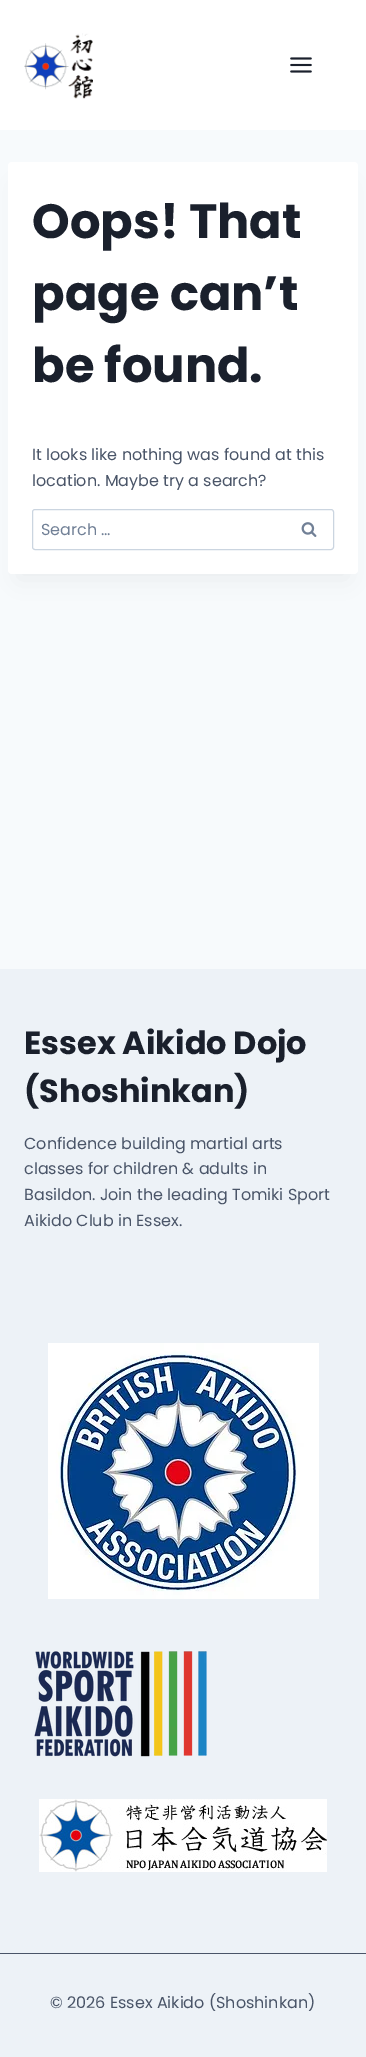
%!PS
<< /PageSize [366 2057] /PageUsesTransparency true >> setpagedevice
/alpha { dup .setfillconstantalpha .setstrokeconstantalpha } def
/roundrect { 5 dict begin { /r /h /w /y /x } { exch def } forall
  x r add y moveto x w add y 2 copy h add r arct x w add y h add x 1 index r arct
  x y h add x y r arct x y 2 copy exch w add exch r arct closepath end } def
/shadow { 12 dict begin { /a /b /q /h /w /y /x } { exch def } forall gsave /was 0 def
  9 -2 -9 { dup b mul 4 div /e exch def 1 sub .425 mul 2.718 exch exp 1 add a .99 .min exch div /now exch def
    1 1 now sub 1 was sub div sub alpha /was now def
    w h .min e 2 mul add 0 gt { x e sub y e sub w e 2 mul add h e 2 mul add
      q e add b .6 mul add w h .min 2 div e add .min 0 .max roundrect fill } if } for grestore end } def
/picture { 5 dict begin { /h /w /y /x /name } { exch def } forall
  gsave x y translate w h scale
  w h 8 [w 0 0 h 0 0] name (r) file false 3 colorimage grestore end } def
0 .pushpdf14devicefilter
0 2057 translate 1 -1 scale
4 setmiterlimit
0.969 0.98 0.988 setrgbcolor
0 0 366 2057 rectfill
1 setgray
0 0 366 130 rectfill
(img1.rgb) 24 33 69 66 picture
(img2.rgb) 290 57 22 16 picture
0 setgray
18 187 330 392 0 12.5 0.05 shadow
1 setgray
8 162 350 412 4 roundrect fill
/Poppins-Bold [48 0 0 -48 0 0] selectfont
0.102 0.125 0.173 setrgbcolor
32 238 moveto (Oops! That) show
32 310 moveto (page can’t) show
32 382 moveto (be found.) show
/Poppins-Regular [16 0 0 -16 0 0] selectfont
0.29 0.333 0.408 setrgbcolor
32 460 moveto (It looks like nothing was found at this) show
32 486 moveto (location. Maybe try a search?) show
0.796 0.835 0.878 setrgbcolor
32.5 509.5 301 40 2.5 roundrect stroke
0.443 0.502 0.588 setrgbcolor
41 535 moveto (Search …) show
(img3.rgb) 301 522 16 15 picture
0.929 0.949 0.969 setrgbcolor
0 969 366 984 rectfill
/Poppins-Bold [32 0 0 -32 0 0] selectfont
0.102 0.125 0.173 setrgbcolor
24 1054 moveto (Essex Aikido Dojo) show
24 1102 moveto (\(Shoshinkan\)) show
/Poppins-Regular [16 0 0 -16 0 0] selectfont
0.29 0.333 0.408 setrgbcolor
24 1149 moveto (Confidence building martial arts) show
24 1174 moveto (classes for children & adults in) show
24 1200 moveto (Basildon. Join the leading Tomiki Sport) show
24 1226 moveto (Aikido Club in Essex.) show
(img4.rgb) 48 1343 271 256 picture
(img5.rgb) 34 1651 173 106 picture
(img6.rgb) 39 1799 288 73 picture
0.929 0.949 0.969 setrgbcolor
0 1954 366 103 rectfill
0.29 0.333 0.408 setrgbcolor
0 1953 366 1 rectfill
50 2008 moveto (© 2026 Essex Aikido \(Shoshinkan\)) show
.poppdf14devicefilter showpage
